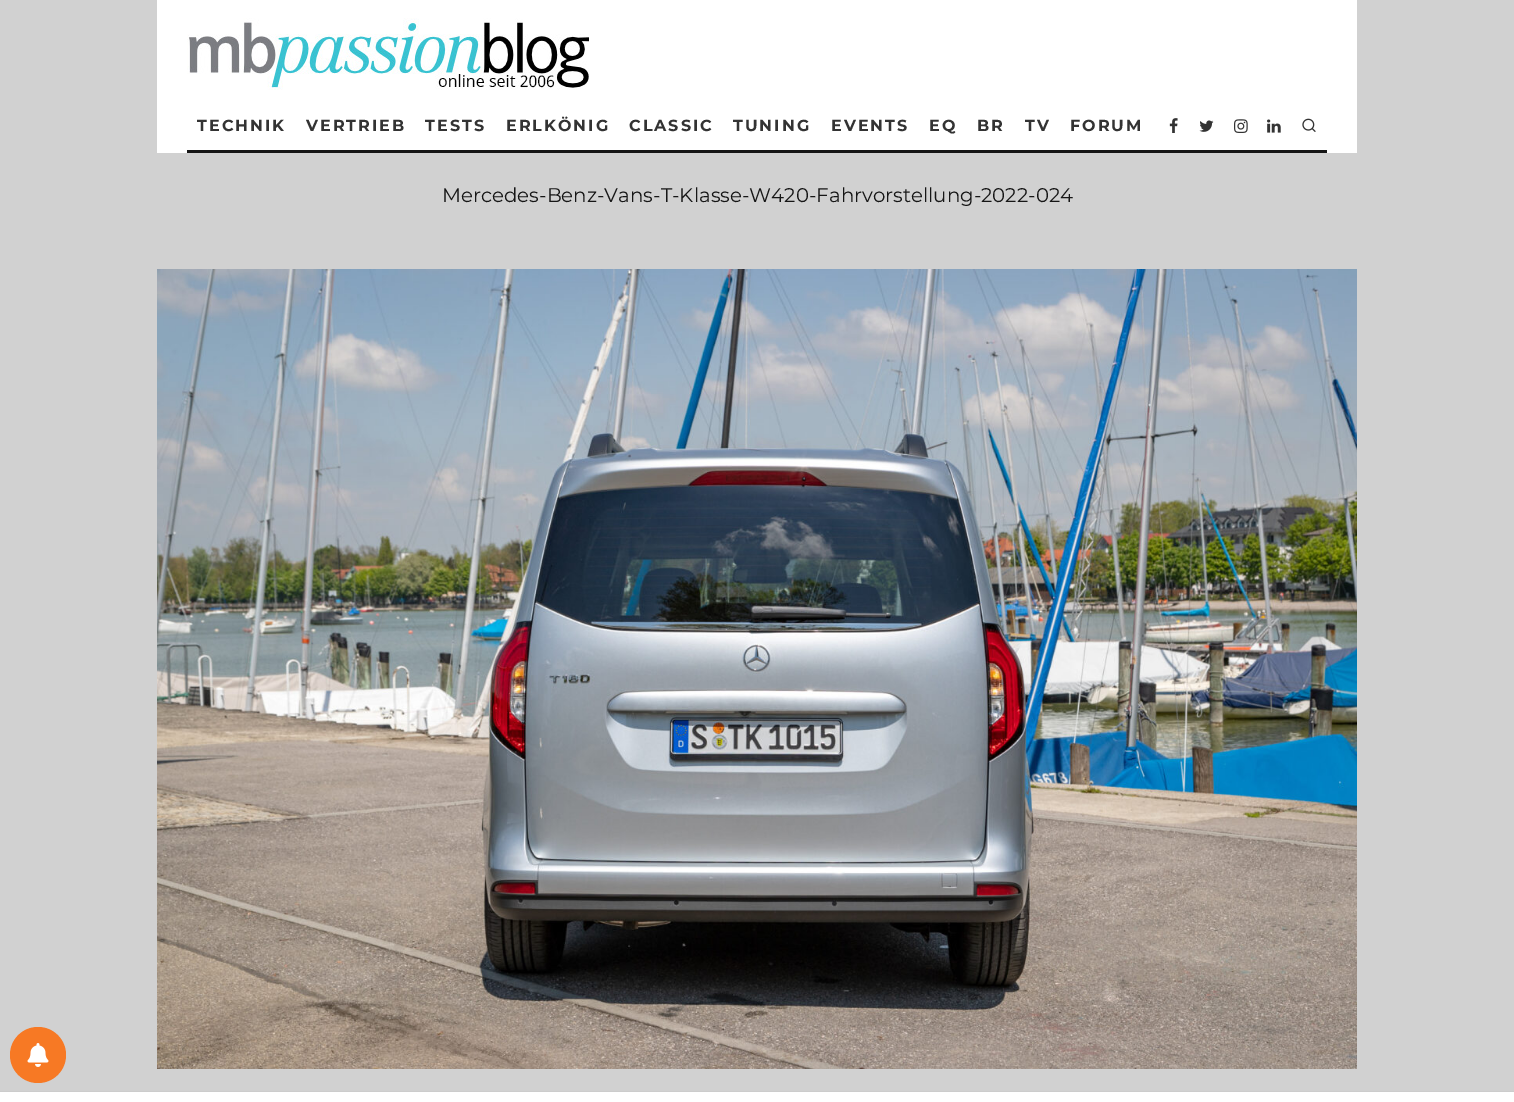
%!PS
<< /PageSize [1514 1102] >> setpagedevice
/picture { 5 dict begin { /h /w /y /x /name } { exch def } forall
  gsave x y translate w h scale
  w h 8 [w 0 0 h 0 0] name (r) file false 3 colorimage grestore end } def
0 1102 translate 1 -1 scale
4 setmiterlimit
0.82 setgray
0 0 1514 1102 rectfill
1 setgray
157 0 1200 153 rectfill
(img1.rgb) 187 18 402 72 picture
0.086 setgray
187 150 1140 3 rectfill
/Montserrat-Bold [16 0 0 -16 0 0] selectfont
0.2 setgray
197 131 moveto 2 0 (TECHNIK) ashow
306 131 moveto 2 0 (VERTRIEB) ashow
425 131 moveto 2 0 (TESTS) ashow
506 131 moveto 2 0 (ERLKÖNIG) ashow
629 131 moveto 2 0 (CLASSIC) ashow
733 131 moveto 2 0 (TUNING) ashow
831 131 moveto 2 0 (EVENTS) ashow
929 131 moveto 2 0 (EQ) ashow
977 131 moveto 2 0 (BR) ashow
1025 131 moveto 2 0 (TV) ashow
1070 131 moveto 2 0 (FORUM) ashow
(img2.rgb) 1169 118 9 15 picture
(img3.rgb) 1199 120 15 12 picture
(img4.rgb) 1234 119 14 14 picture
(img5.rgb) 1267 119 14 14 picture
(img6.rgb) 1302 118 14 14 picture
/Montserrat-Regular [19.8 0 0 -19.8 0 0] selectfont
0.086 setgray
442 202 moveto (Mercedes-Benz-Vans-T-Klasse-W420-Fahrvorstellung-2022-024) show
(img7.rgb) 157 269 1200 800 picture
0.969 0.475 0.141 setrgbcolor
newpath 38 1055 28 0 360 arc closepath fill
(img8.rgb) 27 1043 22 24 picture
1 setgray
0 1092 1514 10 rectfill
0.8 setgray
0 1091 1514 1 rectfill
showpage
